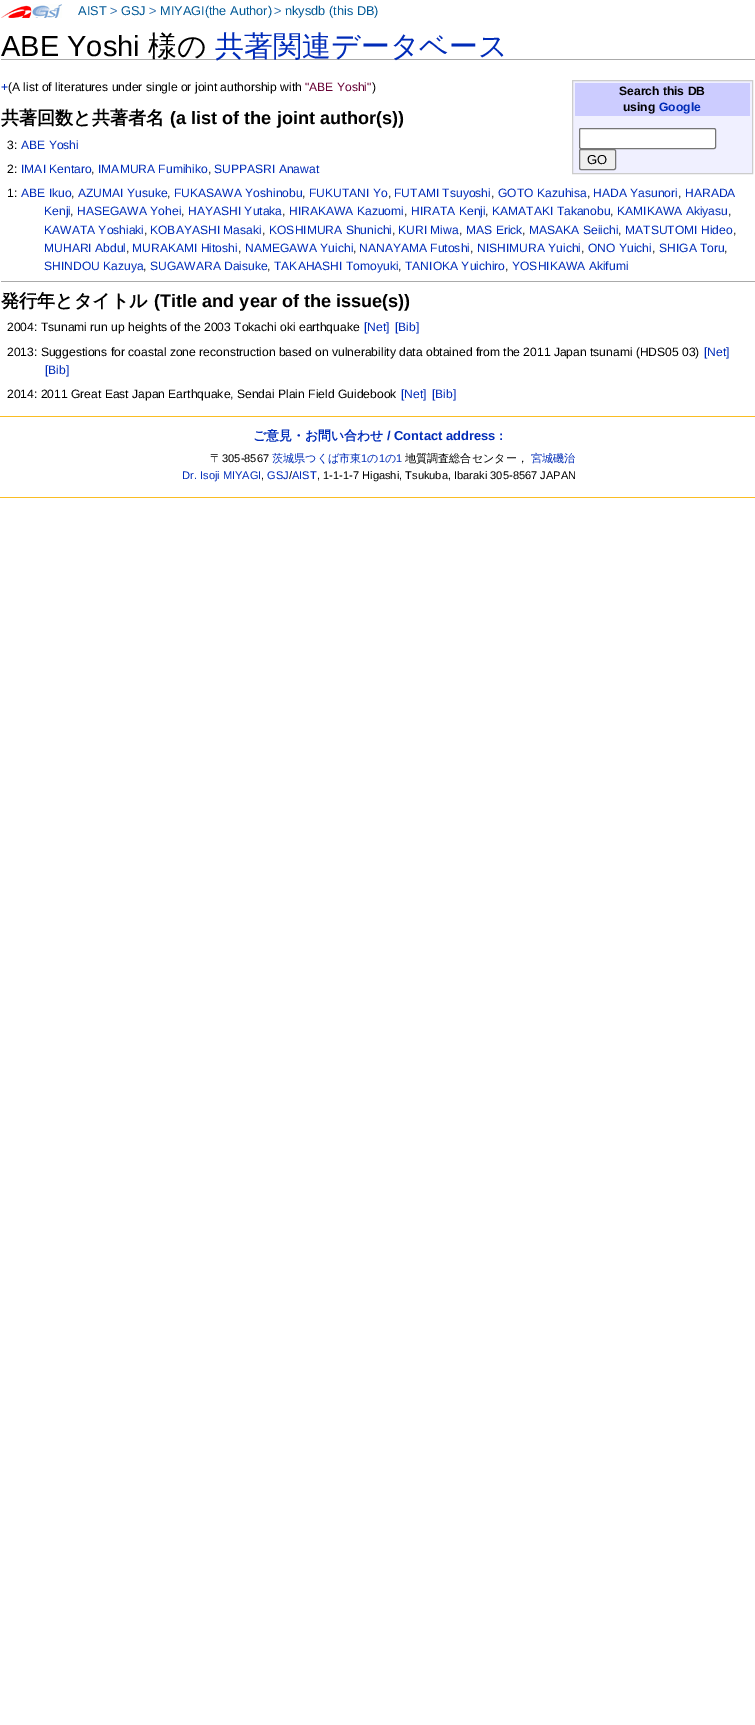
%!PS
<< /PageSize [755 1725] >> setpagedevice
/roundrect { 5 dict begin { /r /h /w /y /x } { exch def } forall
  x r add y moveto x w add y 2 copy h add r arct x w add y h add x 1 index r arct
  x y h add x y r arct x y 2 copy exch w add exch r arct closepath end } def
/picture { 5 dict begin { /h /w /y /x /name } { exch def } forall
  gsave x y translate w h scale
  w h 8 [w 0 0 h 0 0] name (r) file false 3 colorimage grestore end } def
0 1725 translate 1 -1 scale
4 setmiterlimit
1 setgray
0 0 755 1725 rectfill
(img1.rgb) 1 4 61 14 picture
/LiberationSans-Regular [12.75 0 0 -12.75 0 0] selectfont
0 0.345 0.588 setrgbcolor
78 15 moveto (AIST) show
0.184 0.435 0.671 setrgbcolor
110 15 moveto (>) show
0 0.345 0.588 setrgbcolor
121 15 moveto (GSJ) show
0.184 0.435 0.671 setrgbcolor
149 15 moveto (>) show
0 0.345 0.588 setrgbcolor
160 15 moveto (MIYAGI\(the Author\)) show
0.184 0.435 0.671 setrgbcolor
274 15 moveto (>) show
0 0.345 0.588 setrgbcolor
285 15 moveto (nkysdb \(this DB\)) show
0.667 setgray
1 59 754 1 rectfill
/LiberationSans-Regular [29 0 0 -29 0 0] selectfont
0 setgray
1 56 moveto (ABE Yoshi) show
/WenQuanYiZenHei-Medium [29 0 0 -29 0 0] selectfont
148 56 moveto (様の) show
0 0.169 0.722 setrgbcolor
215 56 moveto (共著関連データベース) show
/LiberationSans-Regular [12.1 0 0 -12.1 0 0] selectfont
1 91 moveto (+) show
0 setgray
8 91 moveto (\(A list of literatures under single or joint authorship with) show
0.4 0 0.2 setrgbcolor
305 91 moveto ("ABE Yoshi") show
0 setgray
372 91 moveto (\)) show
0.941 0.941 1 setrgbcolor
newpath 572.5 80.5 moveto 752.5 80.5 lineto 752.5 173.5 lineto 572.5 173.5 lineto closepath gsave fill grestore
0.8 setgray
stroke
0.8 0.8 1 setrgbcolor
575 83 175 33 rectfill
/LiberationSans-Bold [12.1 0 0 -12.1 0 0] selectfont
0 setgray
619 95 moveto (Search this DB) show
623 111 moveto (using) show
0 0.169 0.722 setrgbcolor
659 111 moveto (Google) show
1 setgray
579.5 128.5 136 20 1.5 roundrect gsave fill grestore
0.463 setgray
stroke
0.937 setgray
579.5 149.5 36 20 1.5 roundrect gsave fill grestore
0.463 setgray
stroke
/LiberationSans-Regular [13 0 0 -13 0 0] selectfont
0 setgray
587 164 moveto (GO) show
/WenQuanYiZenHei-Bold [18.1 0 0 -18.1 0 0] selectfont
1 124 moveto (共著回数と共著者名) show
/LiberationSans-Bold [18.1 0 0 -18.1 0 0] selectfont
170 124 moveto (\(a list of the joint author\(s\)\)) show
/LiberationSans-Regular [12.1 0 0 -12.1 0 0] selectfont
7 149 moveto (3:) show
0 0.169 0.722 setrgbcolor
21 149 moveto (ABE Yoshi) show
0 setgray
7 173 moveto (2:) show
0 0.169 0.722 setrgbcolor
21 173 moveto (IMAI Kentaro) show
0 setgray
91 173 moveto (,) show
0 0.169 0.722 setrgbcolor
98 173 moveto (IMAMURA Fumihiko) show
0 setgray
208 173 moveto (,) show
0 0.169 0.722 setrgbcolor
214 173 moveto (SUPPASRI Anawat) show
0 setgray
7 197 moveto (1:) show
0 0.169 0.722 setrgbcolor
21 197 moveto (ABE Ikuo) show
0 setgray
71 197 moveto (,) show
0 0.169 0.722 setrgbcolor
78 197 moveto (AZUMAI Yusuke) show
0 setgray
167 197 moveto (,) show
0 0.169 0.722 setrgbcolor
174 197 moveto (FUKASAWA Yoshinobu) show
0 setgray
302 197 moveto (,) show
0 0.169 0.722 setrgbcolor
309 197 moveto (FUKUTANI Yo) show
0 setgray
388 197 moveto (,) show
0 0.169 0.722 setrgbcolor
394 197 moveto (FUTAMI Tsuyoshi) show
0 setgray
491 197 moveto (,) show
0 0.169 0.722 setrgbcolor
498 197 moveto (GOTO Kazuhisa) show
0 setgray
587 197 moveto (,) show
0 0.169 0.722 setrgbcolor
593 197 moveto (HADA Yasunori) show
0 setgray
678 197 moveto (,) show
0 0.169 0.722 setrgbcolor
685 197 moveto (HARADA) show
44 215 moveto (Kenji) show
0 setgray
70 215 moveto (,) show
0 0.169 0.722 setrgbcolor
77 215 moveto (HASEGAWA Yohei) show
0 setgray
181 215 moveto (,) show
0 0.169 0.722 setrgbcolor
188 215 moveto (HAYASHI Yutaka) show
0 setgray
282 215 moveto (,) show
0 0.169 0.722 setrgbcolor
289 215 moveto (HIRAKAWA Kazuomi) show
0 setgray
404 215 moveto (,) show
0 0.169 0.722 setrgbcolor
411 215 moveto (HIRATA Kenji) show
0 setgray
485 215 moveto (,) show
0 0.169 0.722 setrgbcolor
492 215 moveto (KAMATAKI Takanobu) show
0 setgray
610 215 moveto (,) show
0 0.169 0.722 setrgbcolor
617 215 moveto (KAMIKAWA Akiyasu) show
0 setgray
728 215 moveto (,) show
0 0.169 0.722 setrgbcolor
44 234 moveto (KAWATA Yoshiaki) show
0 setgray
144 234 moveto (,) show
0 0.169 0.722 setrgbcolor
150 234 moveto (KOBAYASHI Masaki) show
0 setgray
262 234 moveto (,) show
0 0.169 0.722 setrgbcolor
269 234 moveto (KOSHIMURA Shunichi) show
0 setgray
392 234 moveto (,) show
0 0.169 0.722 setrgbcolor
398 234 moveto (KURI Miwa) show
0 setgray
459 234 moveto (,) show
0 0.169 0.722 setrgbcolor
466 234 moveto (MAS Erick) show
0 setgray
522 234 moveto (,) show
0 0.169 0.722 setrgbcolor
529 234 moveto (MASAKA Seiichi) show
0 setgray
618 234 moveto (,) show
0 0.169 0.722 setrgbcolor
625 234 moveto (MATSUTOMI Hideo) show
0 setgray
733 234 moveto (,) show
0 0.169 0.722 setrgbcolor
44 252 moveto (MUHARI Abdul) show
0 setgray
126 252 moveto (,) show
0 0.169 0.722 setrgbcolor
132 252 moveto (MURAKAMI Hitoshi) show
0 setgray
238 252 moveto (,) show
0 0.169 0.722 setrgbcolor
245 252 moveto (NAMEGAWA Yuichi) show
0 setgray
353 252 moveto (,) show
0 0.169 0.722 setrgbcolor
359 252 moveto (NANAYAMA Futoshi) show
0 setgray
470 252 moveto (,) show
0 0.169 0.722 setrgbcolor
477 252 moveto (NISHIMURA Yuichi) show
0 setgray
581 252 moveto (,) show
0 0.169 0.722 setrgbcolor
588 252 moveto (ONO Yuichi) show
0 setgray
652 252 moveto (,) show
0 0.169 0.722 setrgbcolor
659 252 moveto (SHIGA Toru) show
0 setgray
724 252 moveto (,) show
0 0.169 0.722 setrgbcolor
44 270 moveto (SHINDOU Kazuya) show
0 setgray
143 270 moveto (,) show
0 0.169 0.722 setrgbcolor
150 270 moveto (SUGAWARA Daisuke) show
0 setgray
267 270 moveto (,) show
0 0.169 0.722 setrgbcolor
274 270 moveto (TAKAHASHI Tomoyuki) show
0 setgray
398 270 moveto (,) show
0 0.169 0.722 setrgbcolor
405 270 moveto (TANIOKA Yuichiro) show
0 setgray
505 270 moveto (,) show
0 0.169 0.722 setrgbcolor
512 270 moveto (YOSHIKAWA Akifumi) show
0.667 setgray
1 281 754 1 rectfill
/WenQuanYiZenHei-Bold [18.1 0 0 -18.1 0 0] selectfont
0 setgray
1 307 moveto (発行年とタイトル) show
/LiberationSans-Bold [18.1 0 0 -18.1 0 0] selectfont
154 307 moveto (\(Title and year of the issue\(s\)\)) show
/LiberationSans-Regular [12.1 0 0 -12.1 0 0] selectfont
7 331 moveto (2004: Tsunami run up heights of the 2003 Tokachi oki earthquake) show
0 0.169 0.722 setrgbcolor
364 331 moveto ([Net]) show
395 331 moveto ([Bib]) show
0 setgray
7 356 moveto (2013: Suggestions for coastal zone reconstruction based on vulnerability data obtained from the 2011 Japan tsunami \(HDS05 03\)) show
0 0.169 0.722 setrgbcolor
704 356 moveto ([Net]) show
45 374 moveto ([Bib]) show
0 setgray
7 398 moveto (2014: 2011 Great East Japan Earthquake, Sendai Plain Field Guidebook) show
0 0.169 0.722 setrgbcolor
401 398 moveto ([Net]) show
432 398 moveto ([Bib]) show
0.98 0.741 0.137 setrgbcolor
0 416 755 1 rectfill
0 497 755 1 rectfill
/WenQuanYiZenHei-Bold [12.9 0 0 -12.9 0 0] selectfont
0 0.169 0.722 setrgbcolor
253 440 moveto (ご意見・お問い合わせ) show
/LiberationSans-Bold [12.9 0 0 -12.9 0 0] selectfont
387 440 moveto (/ Contact address :) show
/WenQuanYiZenHei-Medium [11.1 0 0 -11.1 0 0] selectfont
0 setgray
210 462 moveto (〒) show
/LiberationSans-Regular [11.1 0 0 -11.1 0 0] selectfont
222 462 moveto (305-8567) show
/WenQuanYiZenHei-Medium [11.1 0 0 -11.1 0 0] selectfont
0 0.169 0.722 setrgbcolor
272 462 moveto (茨城県つくば市東) show
/LiberationSans-Regular [11.1 0 0 -11.1 0 0] selectfont
361 462 moveto (1) show
/WenQuanYiZenHei-Medium [11.1 0 0 -11.1 0 0] selectfont
367 462 moveto (の) show
/LiberationSans-Regular [11.1 0 0 -11.1 0 0] selectfont
379 462 moveto (1) show
/WenQuanYiZenHei-Medium [11.1 0 0 -11.1 0 0] selectfont
385 462 moveto (の) show
/LiberationSans-Regular [11.1 0 0 -11.1 0 0] selectfont
396 462 moveto (1) show
/WenQuanYiZenHei-Medium [11.1 0 0 -11.1 0 0] selectfont
0 setgray
405 462 moveto (地質調査総合センター，) show
0 0.169 0.722 setrgbcolor
531 462 moveto (宮城磯治) show
/LiberationSans-Regular [11.1 0 0 -11.1 0 0] selectfont
182 479 moveto (Dr. Isoji MIYAGI) show
267 479 moveto (GSJ AIST) show
0 setgray
289 479 moveto (/) show
317 479 moveto (, 1-1-1-7 Higashi, Tsukuba, Ibaraki 305-8567 JAPAN) show
261 479 moveto (,) show
showpage
